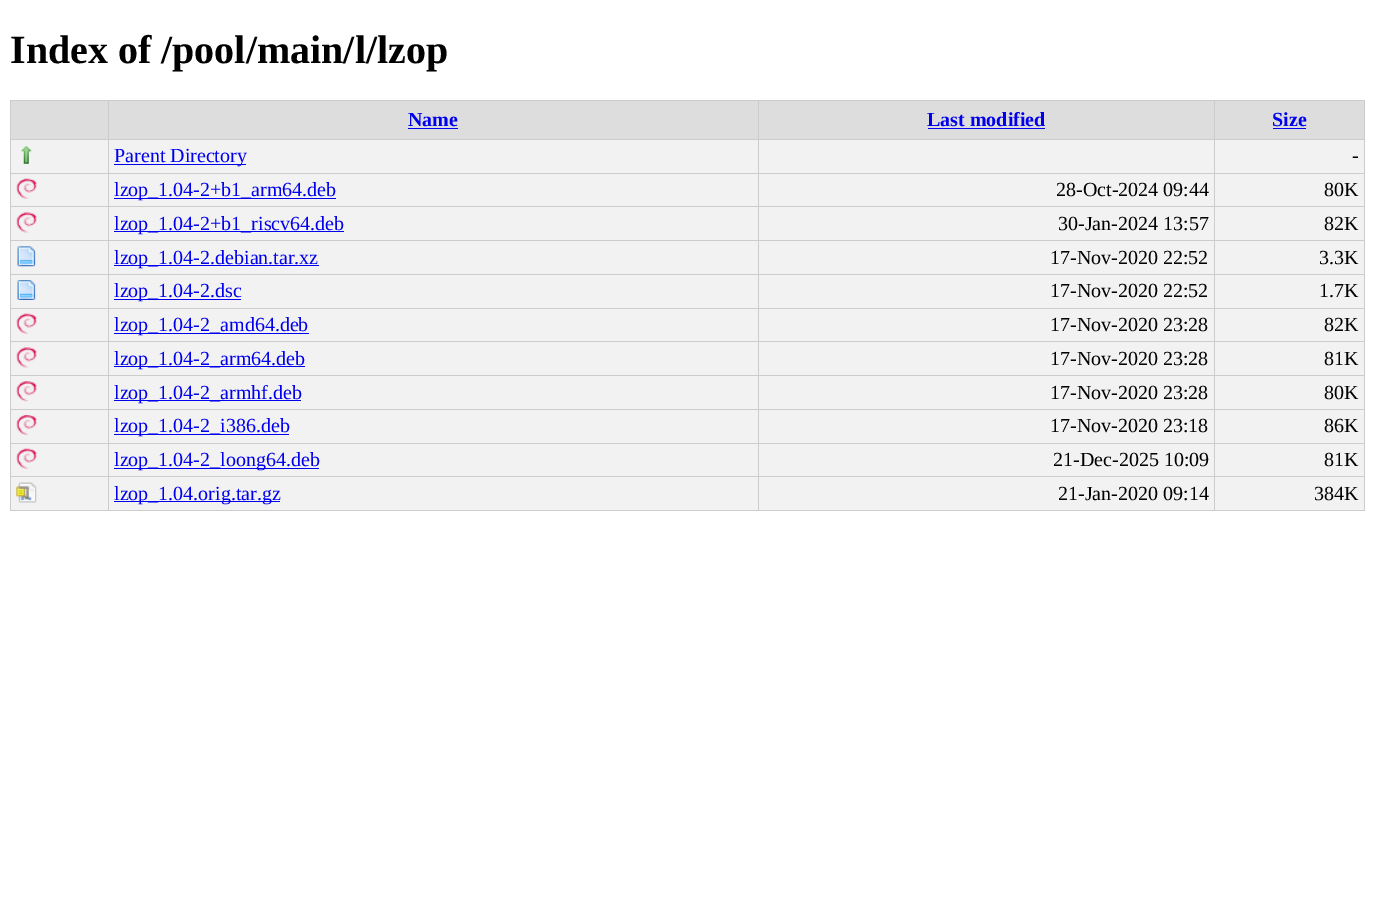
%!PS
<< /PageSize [1374 908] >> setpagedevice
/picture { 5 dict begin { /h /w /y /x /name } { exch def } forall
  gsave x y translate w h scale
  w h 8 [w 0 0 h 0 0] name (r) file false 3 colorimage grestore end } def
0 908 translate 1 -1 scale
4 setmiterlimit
1 setgray
0 0 1374 908 rectfill
/LiberationSerif-Bold [40 0 0 -40 0 0] selectfont
0 setgray
10 63 moveto (Index of /pool/main/l/lzop) show
0.867 setgray
11 101 97 38 rectfill
0.8 setgray
1214 100 151 1 rectfill
1214 139 151 1 rectfill
0.949 setgray
11 140 1353 33 rectfill
0.8 setgray
1214 173 151 1 rectfill
0.949 setgray
11 174 1353 32 rectfill
11 207 1353 33 rectfill
0.8 setgray
1214 206 151 1 rectfill
1214 240 151 1 rectfill
0.949 setgray
11 241 1353 33 rectfill
0.8 setgray
1214 274 151 1 rectfill
0.949 setgray
11 275 1353 33 rectfill
0.8 setgray
1214 308 151 1 rectfill
0.949 setgray
11 309 1353 32 rectfill
11 342 1353 33 rectfill
0.8 setgray
1214 341 151 1 rectfill
1214 375 151 1 rectfill
0.949 setgray
11 376 1353 33 rectfill
0.8 setgray
1214 409 151 1 rectfill
0.949 setgray
11 410 1353 33 rectfill
0.8 setgray
1214 443 151 1 rectfill
0.949 setgray
11 444 1353 32 rectfill
11 477 1353 33 rectfill
0.8 setgray
1214 476 151 1 rectfill
1364 476 1 35 rectfill
1214 510 151 1 rectfill
1214 476 1 35 rectfill
758 476 457 1 rectfill
1214 443 1 35 rectfill
758 443 457 1 rectfill
1214 409 1 35 rectfill
758 409 457 1 rectfill
1214 375 1 35 rectfill
758 375 457 1 rectfill
1214 341 1 35 rectfill
758 341 457 1 rectfill
1214 308 1 35 rectfill
758 308 457 1 rectfill
1214 274 1 35 rectfill
758 274 457 1 rectfill
1214 240 1 35 rectfill
758 240 457 1 rectfill
1214 206 1 35 rectfill
758 206 457 1 rectfill
1214 173 1 35 rectfill
758 173 457 1 rectfill
1214 139 1 35 rectfill
758 139 457 1 rectfill
1214 100 1 40 rectfill
758 100 457 1 rectfill
758 510 457 1 rectfill
758 476 1 35 rectfill
108 476 651 1 rectfill
758 443 1 35 rectfill
108 443 651 1 rectfill
758 409 1 35 rectfill
108 409 651 1 rectfill
758 375 1 35 rectfill
108 375 651 1 rectfill
758 341 1 35 rectfill
108 341 651 1 rectfill
758 308 1 35 rectfill
108 308 651 1 rectfill
758 274 1 35 rectfill
108 274 651 1 rectfill
758 240 1 35 rectfill
108 240 651 1 rectfill
758 206 1 35 rectfill
108 206 651 1 rectfill
758 173 1 35 rectfill
108 173 651 1 rectfill
758 139 1 35 rectfill
108 139 651 1 rectfill
758 100 1 40 rectfill
108 100 651 1 rectfill
108 510 651 1 rectfill
108 476 1 35 rectfill
10 476 99 1 rectfill
108 443 1 35 rectfill
10 443 99 1 rectfill
108 409 1 35 rectfill
10 409 99 1 rectfill
108 375 1 35 rectfill
10 375 99 1 rectfill
108 341 1 35 rectfill
10 341 99 1 rectfill
108 308 1 35 rectfill
10 308 99 1 rectfill
108 274 1 35 rectfill
10 274 99 1 rectfill
108 240 1 35 rectfill
10 240 99 1 rectfill
108 206 1 35 rectfill
10 206 99 1 rectfill
108 173 1 35 rectfill
10 173 99 1 rectfill
108 139 1 35 rectfill
10 139 99 1 rectfill
108 100 1 40 rectfill
10 100 99 1 rectfill
10 510 99 1 rectfill
10 476 1 35 rectfill
10 443 1 35 rectfill
10 409 1 35 rectfill
10 375 1 35 rectfill
10 341 1 35 rectfill
10 308 1 35 rectfill
10 274 1 35 rectfill
10 240 1 35 rectfill
10 206 1 35 rectfill
10 173 1 35 rectfill
10 139 1 35 rectfill
10 100 1 40 rectfill
0.867 setgray
109 101 649 38 rectfill
/LiberationSerif-Bold [20 0 0 -20 0 0] selectfont
0 0 0.933 setrgbcolor
408 126 moveto (Name) show
408 128 50 1 rectfill
0.867 setgray
759 101 455 38 rectfill
0 0 0.933 setrgbcolor
927 126 moveto (Last modified) show
928 128 117 1 rectfill
0.867 setgray
1215 101 149 38 rectfill
0.8 setgray
1364 443 1 35 rectfill
1364 409 1 35 rectfill
1364 375 1 35 rectfill
1364 341 1 35 rectfill
1364 308 1 35 rectfill
1364 274 1 35 rectfill
1364 240 1 35 rectfill
1364 206 1 35 rectfill
1364 173 1 35 rectfill
1364 139 1 35 rectfill
1364 100 1 40 rectfill
0 0 0.933 setrgbcolor
1272 126 moveto (Size) show
1273 128 33 1 rectfill
(img1.rgb) 21 146 11 18 picture
114 164 132 1 rectfill
/LiberationSerif-Regular [20 0 0 -20 0 0] selectfont
114 162 moveto (Parent Directory) show
0 setgray
1352 162 moveto (-) show
(img2.rgb) 16 178 21 21 picture
0 0 0.933 setrgbcolor
114 198 222 1 rectfill
114 196 moveto (lzop_1.04-2+b1_arm64.deb) show
0 setgray
1056 196 moveto (28-Oct-2024 09:44) show
1324 196 moveto (80K) show
(img3.rgb) 16 212 21 21 picture
0 0 0.933 setrgbcolor
114 231 230 1 rectfill
114 230 moveto (lzop_1.04-2+b1_riscv64.deb) show
0 setgray
1058 230 moveto (30-Jan-2024 13:57) show
1324 230 moveto (82K) show
(img4.rgb) 17 246 19 21 picture
0 0 0.933 setrgbcolor
114 265 205 1 rectfill
114 264 moveto (lzop_1.04-2.debian.tar.xz) show
0 setgray
1050 264 moveto (17-Nov-2020 22:52) show
1319 264 moveto (3.3K) show
(img5.rgb) 17 280 19 20 picture
0 0 0.933 setrgbcolor
114 299 127 1 rectfill
114 297 moveto (lzop_1.04-2.dsc) show
0 setgray
1050 297 moveto (17-Nov-2020 22:52) show
1319 297 moveto (1.7K) show
(img2.rgb) 16 313 21 21 picture
0 0 0.933 setrgbcolor
114 333 195 1 rectfill
114 331 moveto (lzop_1.04-2_amd64.deb) show
0 setgray
1050 331 moveto (17-Nov-2020 23:28) show
1324 331 moveto (82K) show
(img3.rgb) 16 347 21 21 picture
0 0 0.933 setrgbcolor
114 366 191 1 rectfill
114 365 moveto (lzop_1.04-2_arm64.deb) show
0 setgray
1050 365 moveto (17-Nov-2020 23:28) show
1324 365 moveto (81K) show
(img6.rgb) 16 381 21 21 picture
0 0 0.933 setrgbcolor
114 400 187 1 rectfill
114 399 moveto (lzop_1.04-2_armhf.deb) show
0 setgray
1050 399 moveto (17-Nov-2020 23:28) show
1324 399 moveto (80K) show
(img7.rgb) 16 415 21 20 picture
0 0 0.933 setrgbcolor
114 434 175 1 rectfill
114 432 moveto (lzop_1.04-2_i386.deb) show
0 setgray
1050 432 moveto (17-Nov-2020 23:18) show
1324 432 moveto (86K) show
(img2.rgb) 16 448 21 21 picture
0 0 0.933 setrgbcolor
114 468 205 1 rectfill
114 466 moveto (lzop_1.04-2_loong64.deb) show
0 setgray
1053 466 moveto (21-Dec-2025 10:09) show
1324 466 moveto (81K) show
(img8.rgb) 16 482 21 21 picture
0 0 0.933 setrgbcolor
114 501 166 1 rectfill
114 500 moveto (lzop_1.04.orig.tar.gz) show
0 setgray
1058 500 moveto (21-Jan-2020 09:14) show
1314 500 moveto (384K) show
showpage
